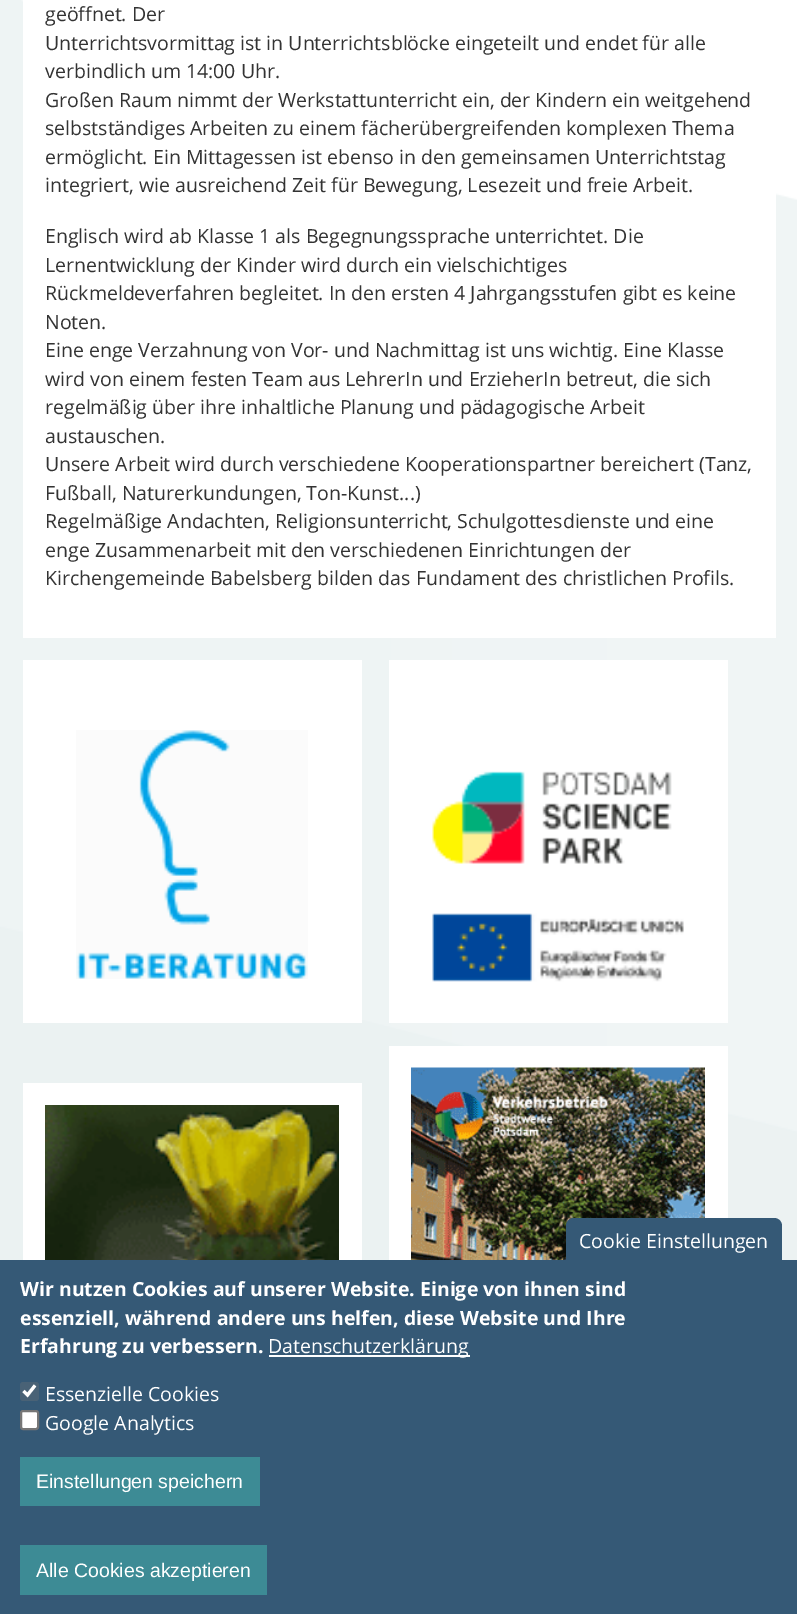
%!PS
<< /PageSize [797 1614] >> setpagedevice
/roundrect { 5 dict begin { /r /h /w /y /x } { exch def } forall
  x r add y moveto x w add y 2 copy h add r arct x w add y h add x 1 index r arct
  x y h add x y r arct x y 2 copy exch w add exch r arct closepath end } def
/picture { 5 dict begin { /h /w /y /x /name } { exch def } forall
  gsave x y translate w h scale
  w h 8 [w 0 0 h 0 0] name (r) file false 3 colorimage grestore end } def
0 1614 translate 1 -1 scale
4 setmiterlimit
1 setgray
0 0 797 1614 rectfill
(img1.rgb) 0 0 797 1260 picture
23 0 753 638 rectfill
/OpenSans-Regular [19.5 0 0 -19.5 0 0] selectfont
0.2 setgray
45 21 moveto (geöffnet. Der) show
45 50 moveto (Unterrichtsvormittag ist in Unterrichtsblöcke eingeteilt und endet für alle) show
45 78 moveto (verbindlich um 14:00 Uhr.) show
45 107 moveto (Großen Raum nimmt der Werkstattunterricht ein, der Kindern ein weitgehend) show
45 135 moveto (selbstständiges Arbeiten zu einem fächerübergreifenden komplexen Thema) show
45 164 moveto (ermöglicht. Ein Mittagessen ist ebenso in den gemeinsamen Unterrichtstag) show
45 192 moveto (integriert, wie ausreichend Zeit für Bewegung, Lesezeit und freie Arbeit.) show
45 243 moveto (Englisch wird ab Klasse 1 als Begegnungssprache unterrichtet. Die) show
45 272 moveto (Lernentwicklung der Kinder wird durch ein vielschichtiges) show
45 300 moveto (Rückmeldeverfahren begleitet. In den ersten 4 Jahrgangsstufen gibt es keine) show
45 329 moveto (Noten.) show
45 357 moveto (Eine enge Verzahnung von Vor- und Nachmittag ist uns wichtig. Eine Klasse) show
45 386 moveto (wird von einem festen Team aus LehrerIn und ErzieherIn betreut, die sich) show
45 414 moveto (regelmäßig über ihre inhaltliche Planung und pädagogische Arbeit) show
45 443 moveto (austauschen.) show
45 471 moveto (Unsere Arbeit wird durch verschiedene Kooperationspartner bereichert \(Tanz,) show
45 500 moveto (Fußball, Naturerkundungen, Ton-Kunst...\)) show
45 528 moveto (Regelmäßige Andachten, Religionsunterricht, Schulgottesdienste und eine) show
45 557 moveto (enge Zusammenarbeit mit den verschiedenen Einrichtungen der) show
45 585 moveto (Kirchengemeinde Babelsberg bilden das Fundament des christlichen Profils.) show
1 setgray
23 660 339 363 rectfill
(img2.rgb) 76 730 232 249 picture
389 660 339 363 rectfill
(img3.rgb) 432 771 252 211 picture
23 1083 339 177 rectfill
(img4.rgb) 45 1105 294 155 picture
389 1046 339 214 rectfill
(img5.rgb) 411 1067 294 193 picture
0.208 0.349 0.463 setrgbcolor
0 1260 797 354 rectfill
newpath 574 1218 moveto 774 1218 lineto 778.5 1218 782 1221.5 782 1226 curveto 782 1260 lineto 566 1260 lineto 566 1226 lineto 566 1221.5 569.5 1218 574 1218 curveto closepath fill
1 setgray
579 1248 moveto (Cookie Einstellungen) show
/OpenSans-Bold [19.5 0 0 -19.5 0 0] selectfont
20 1296 moveto (Wir nutzen Cookies auf unserer Website. Einige von ihnen sind) show
20 1325 moveto (essenziell, während andere uns helfen, diese Website und Ihre) show
20 1353 moveto (Erfahrung zu verbessern.) show
269 1355 201 2 rectfill
/OpenSans-Regular [19.5 0 0 -19.5 0 0] selectfont
268 1353 moveto (Datenschutzerklärung) show
0.286 0.384 0.463 setrgbcolor
20 1382 19 19 3 roundrect fill
1 setgray
3.1 setlinewidth
newpath 23.5 1391 moveto 27.5 1395 lineto 35 1385.5 lineto stroke
45 1401 moveto (Essenzielle Cookies) show
21 1411 17 18 2 roundrect gsave fill grestore
0.463 setgray
2 setlinewidth
stroke
1 setgray
45 1430 moveto (Google Analytics) show
0.239 0.545 0.584 setrgbcolor
20 1457 240 49 rectfill
/LiberationSans-Regular [19.5 0 0 -19.5 0 0] selectfont
1 setgray
36 1488 moveto (Einstellungen speichern) show
0.239 0.545 0.584 setrgbcolor
20 1545 247 50 rectfill
1 setgray
36 1577 moveto (Alle Cookies akzeptieren) show
showpage
